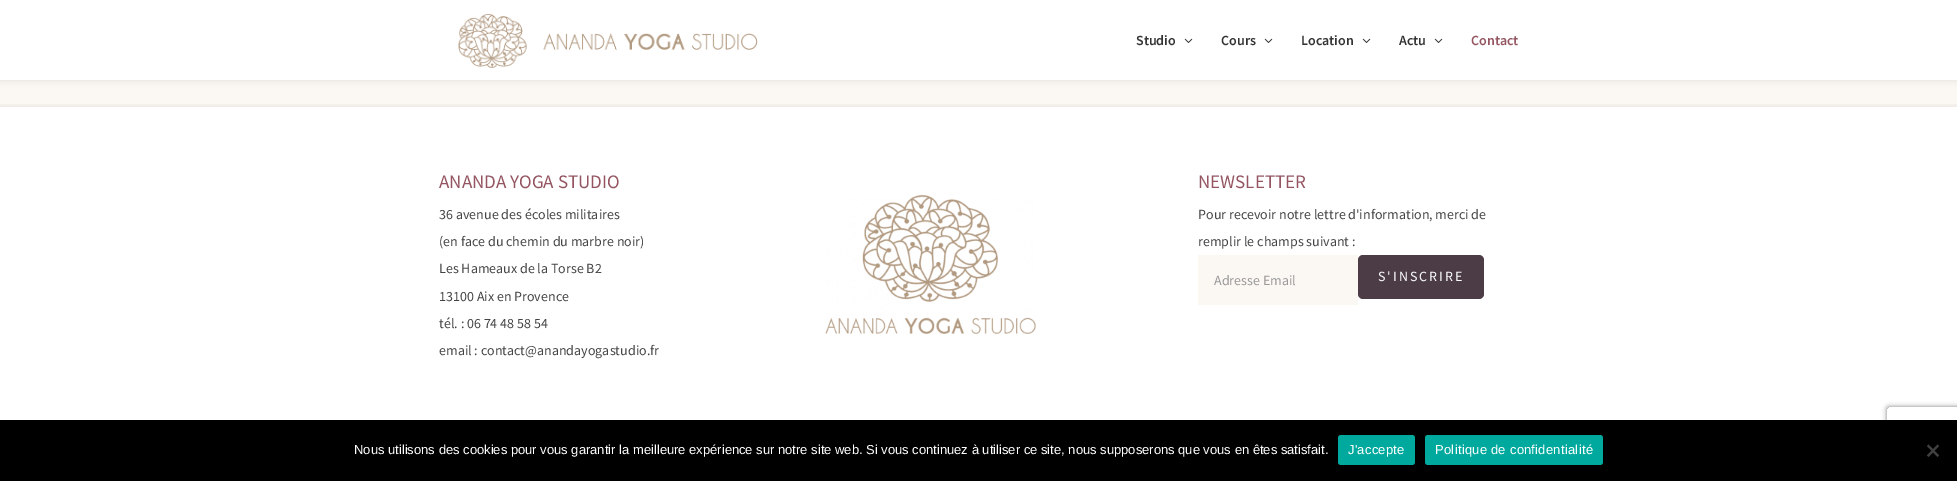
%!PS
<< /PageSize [1957 481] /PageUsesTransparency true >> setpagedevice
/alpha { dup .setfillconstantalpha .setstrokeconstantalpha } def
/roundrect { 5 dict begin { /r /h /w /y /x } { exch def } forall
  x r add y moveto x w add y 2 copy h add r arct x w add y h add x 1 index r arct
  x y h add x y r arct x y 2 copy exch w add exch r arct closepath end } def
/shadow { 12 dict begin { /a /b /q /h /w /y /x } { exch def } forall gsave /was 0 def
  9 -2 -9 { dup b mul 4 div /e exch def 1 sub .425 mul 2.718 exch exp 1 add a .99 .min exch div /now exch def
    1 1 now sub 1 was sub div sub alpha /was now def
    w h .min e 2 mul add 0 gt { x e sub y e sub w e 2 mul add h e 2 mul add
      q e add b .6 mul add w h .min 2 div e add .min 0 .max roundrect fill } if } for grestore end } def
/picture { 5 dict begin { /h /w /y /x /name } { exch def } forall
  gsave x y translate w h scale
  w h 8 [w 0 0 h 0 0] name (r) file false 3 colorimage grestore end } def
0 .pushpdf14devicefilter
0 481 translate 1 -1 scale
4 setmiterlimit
1 setgray
0 0 1957 481 rectfill
0.984 0.973 0.957 setrgbcolor
0 80 1957 27 rectfill
0 setgray
0 0 1957 80 0 3.5 0.1 shadow
1 setgray
0 0 1957 80 rectfill
(img1.rgb) 458 14 300 54 picture
/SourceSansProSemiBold-SemiBold [14 0 0 -14 0 0] selectfont
0.2 setgray
1136 45 moveto (Studio) show
(img2.rgb) 1184 38 9 5 picture
1221 45 moveto (Cours) show
(img2.rgb) 1264 38 9 5 picture
1301 45 moveto (Location) show
(img2.rgb) 1362 38 9 5 picture
1399 45 moveto (Actu) show
(img2.rgb) 1434 38 9 5 picture
0.58 0.333 0.38 setrgbcolor
1471 45 moveto (Contact) show
gsave
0 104 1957 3 rectclip
0.082 0.071 0.059 setrgbcolor
0 107 1957 374 0 3.5 0.1 shadow
grestore
/SourceSansPro-Regular [19 0 0 -19 0 0] selectfont
439 188 moveto (ANANDA YOGA STUDIO) show
/SourceSansPro-Regular [14 0 0 -14 0 0] selectfont
0.267 setgray
439 219 moveto (36 avenue des écoles militaires) show
439 246 moveto (\(en face du chemin du marbre noir\)) show
439 273 moveto (Les Hameaux de la Torse B2) show
439 301 moveto (13100 Aix en Provence) show
439 328 moveto (tél. : 06 74 48 58 54) show
439 355 moveto (email : contact@anandayogastudio.fr) show
(img3.rgb) 825 194 211 140 picture
/SourceSansPro-Regular [19 0 0 -19 0 0] selectfont
0.58 0.333 0.38 setrgbcolor
1198 188 moveto (NEWSLETTER) show
/SourceSansPro-Regular [14 0 0 -14 0 0] selectfont
0.267 setgray
1198 219 moveto (Pour recevoir notre lettre d'information, merci de) show
1198 246 moveto (remplir le champs suivant :) show
0.984 0.973 0.957 setrgbcolor
1198 255 160 50 rectfill
0.6 setgray
1214 285 moveto (Adresse Email) show
0.298 0.235 0.275 setrgbcolor
1358 255 126 44 5 roundrect fill
1 setgray
1378 281 moveto 2 0 (S'INSCRIRE) ashow
gsave
newpath 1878 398 moveto 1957 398 lineto 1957 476 lineto 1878 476 lineto closepath 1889 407 moveto 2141 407 lineto 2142 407 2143 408 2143 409 curveto 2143 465 lineto 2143 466 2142 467 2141 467 curveto 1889 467 lineto 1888 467 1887 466 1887 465 curveto 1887 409 lineto 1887 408 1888 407 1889 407 curveto closepath eoclip newpath
0.502 setgray
1887 407 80 60 2 2.5 1 shadow
grestore
0 setgray
0 420 1957 61 rectfill
/LiberationSans-Regular [13 0 0 -13 0 0] selectfont
1 setgray
354 454 moveto (Nous utilisons des cookies pour vous garantir la meilleure expérience sur notre site web. Si vous continuez à utiliser ce site, nous supposerons que vous en êtes satisfait.) show
0 0.663 0.616 setrgbcolor
1338 435 77 30 3 roundrect fill
1 setgray
1348 454 moveto 0.25 0 (J'accepte) ashow
0 0.663 0.616 setrgbcolor
1425 435 178 30 3 roundrect fill
1 setgray
1435 454 moveto 0.25 0 (Politique de confidentialité) ashow
0.251 setgray
newpath 1937.5 444.5 moveto 1939 446 lineto 1928.5 457 lineto 1927 455.5 lineto closepath fill
newpath 1927 446 moveto 1928.5 444.5 lineto 1939 455.5 lineto 1937.5 457 lineto closepath fill
.poppdf14devicefilter showpage
